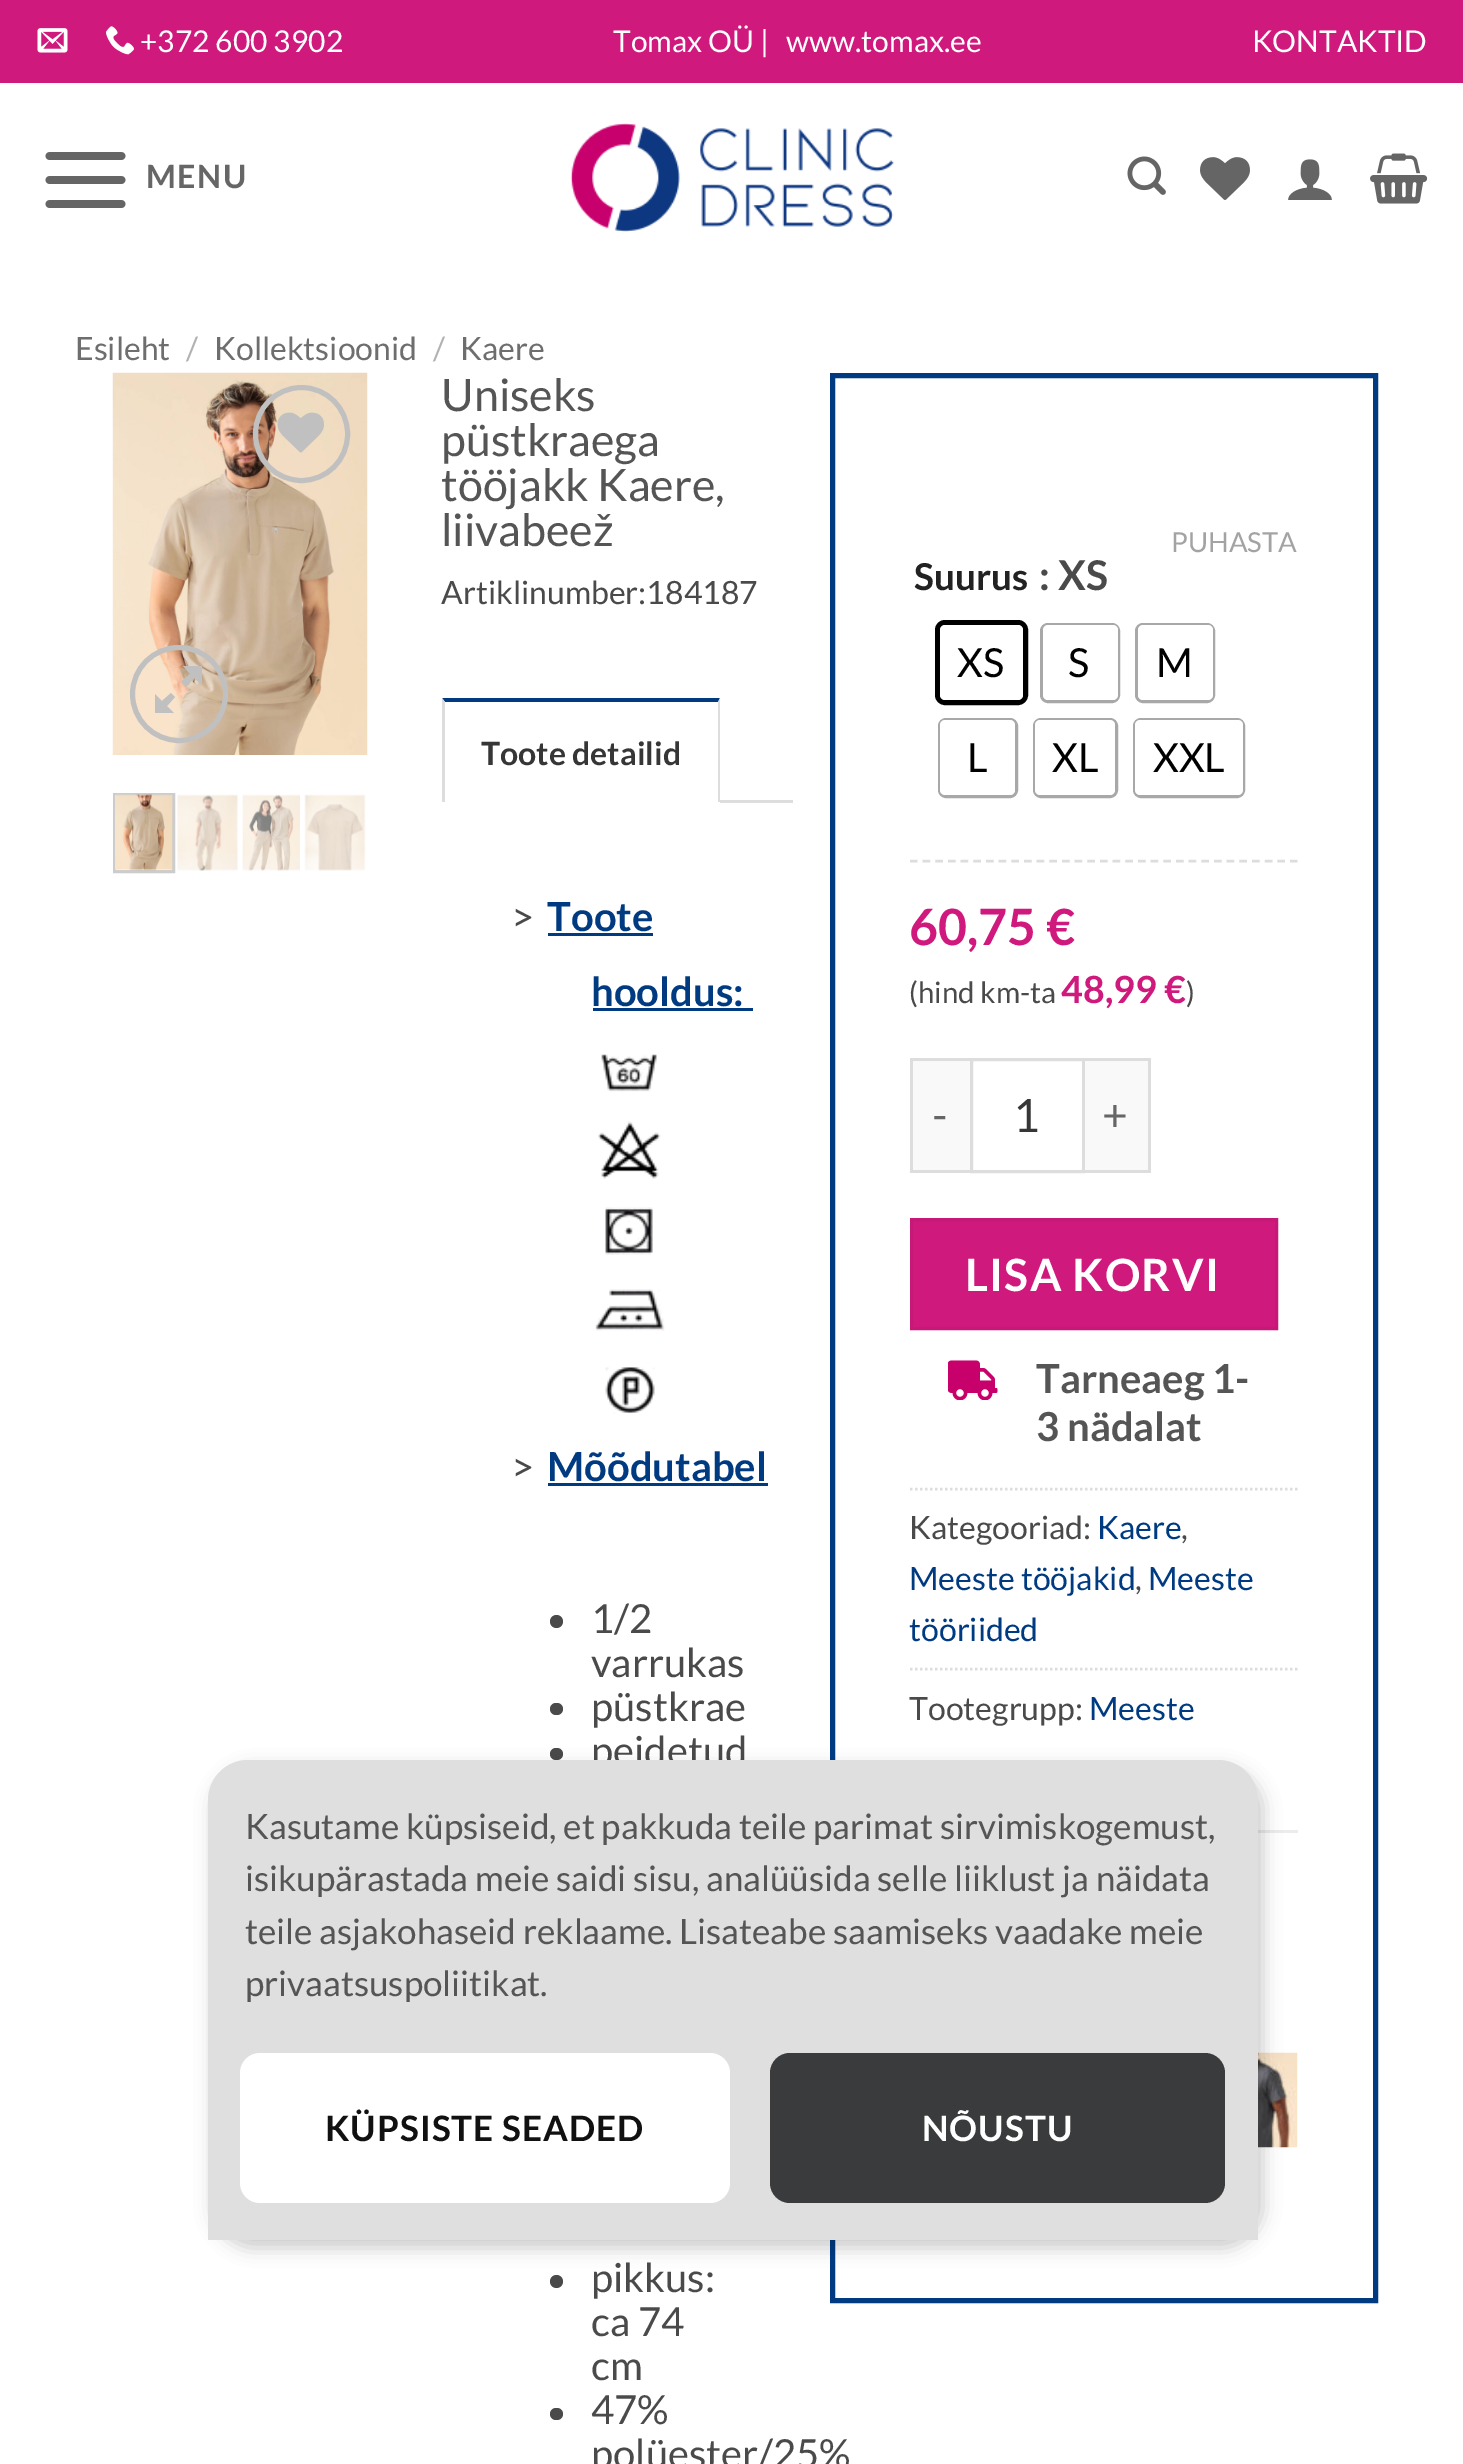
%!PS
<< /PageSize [1463 2464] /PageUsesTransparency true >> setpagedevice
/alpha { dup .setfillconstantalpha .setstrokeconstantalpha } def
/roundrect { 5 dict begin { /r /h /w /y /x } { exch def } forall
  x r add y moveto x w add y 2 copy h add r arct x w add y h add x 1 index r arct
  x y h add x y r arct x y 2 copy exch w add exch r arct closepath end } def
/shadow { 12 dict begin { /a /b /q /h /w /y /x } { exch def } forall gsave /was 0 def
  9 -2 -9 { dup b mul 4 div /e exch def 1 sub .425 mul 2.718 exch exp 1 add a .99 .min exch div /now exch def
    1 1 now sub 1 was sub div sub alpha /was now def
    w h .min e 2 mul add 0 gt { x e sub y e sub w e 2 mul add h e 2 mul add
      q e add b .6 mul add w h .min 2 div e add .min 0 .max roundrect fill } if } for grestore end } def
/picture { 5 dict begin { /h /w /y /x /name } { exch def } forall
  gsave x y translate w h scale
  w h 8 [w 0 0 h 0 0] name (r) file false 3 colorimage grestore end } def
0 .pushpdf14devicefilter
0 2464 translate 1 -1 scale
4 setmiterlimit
1 setgray
0 0 1463 2464 rectfill
0.812 0.098 0.49 setrgbcolor
0 0 1463 83 rectfill
(img1.rgb) 37 28 31 25 picture
(img2.rgb) 106 26 28 29 picture
/Lato-Regular [30 0 0 -30 0 0] selectfont
1 setgray
140 52 moveto (+372 600 3902) show
613 52 moveto (Tomax OÜ |) show
786 52 moveto (www.tomax.ee) show
1252 52 moveto (KONTAKTID) show
(img3.rgb) 45 152 81 56 picture
/Lato-Bold [32 0 0 -32 0 0] selectfont
0.4 setgray
146 188 moveto 1.5 0 (MENU) ashow
(img4.rgb) 570 123 324 109 picture
(img5.rgb) 1127 156 39 39 picture
(img6.rgb) 1200 157 50 43 picture
(img7.rgb) 1288 159 44 41 picture
(img8.rgb) 1370 153 58 51 picture
/Lato-Regular [32 0 0 -32 0 0] selectfont
0.431 setgray
75 360 moveto (Esileht) show
0.698 setgray
186 360 moveto (/) show
0.431 setgray
214 360 moveto (Kollektsioonid) show
0.698 setgray
433 360 moveto (/) show
0.431 setgray
460 360 moveto (Kaere) show
(img9.rgb) 112 372 256 383 picture
0.753 setgray
5 setlinewidth
255.5 387.5 92 93 46 roundrect stroke
(img10.rgb) 277 412 47 41 picture
newpath 179 694 46.5 0 360 arc closepath stroke
newpath 202 666 moveto 202 685 lineto 194 678 lineto 186 687 lineto 181 682 lineto 190 674 lineto 183 666 lineto closepath 175 697 moveto 167 706 lineto 174 713 lineto 155 713 lineto 155 694 lineto 162 701 lineto 171 693 lineto closepath fill
0.8 setgray
3 setlinewidth
114.5 794.5 59 77 rectstroke
(img11.rgb) 115 794 58 77 picture
(img12.rgb) 177 794 61 77 picture
(img13.rgb) 242 794 58 77 picture
(img14.rgb) 304 794 62 77 picture
/Lato-Regular [44.75 0 0 -44.75 0 0] selectfont
0.333 setgray
441 411 moveto (Uniseks) show
441 456 moveto (püstkraega) show
441 501 moveto (tööjakk Kaere,) show
441 546 moveto (liivabeež) show
/Lato-Regular [32 0 0 -32 0 0] selectfont
0.29 setgray
441 604 moveto (Artiklinumber:184187) show
0.867 setgray
720 800 73 3 rectfill
0 0.231 0.51 setrgbcolor
newpath 442 698 moveto 720 698 lineto 718 702 lineto 445 702 lineto closepath fill
0.867 setgray
newpath 720 698 moveto 720 802 lineto 718 802 lineto 718 702 lineto closepath fill
newpath 442 802 moveto 442 698 lineto 445 702 lineto 445 802 lineto closepath fill
/Lato-Bold [32 0 0 -32 0 0] selectfont
0.212 setgray
481 765 moveto (Toote detailid) show
/Lato-Regular [40 0 0 -40 0 0] selectfont
0.29 setgray
511 931 moveto (>) show
/Lato-Bold [40 0 0 -40 0 0] selectfont
0 0.231 0.51 setrgbcolor
547 931 moveto (Toote) show
548 933 105 3 rectfill
591 1006 moveto (hooldus:) show
593 1008 160 3 rectfill
(img15.rgb) 601 1054 56 38 picture
(img16.rgb) 598 1121 63 58 picture
(img17.rgb) 605 1207 48 48 picture
(img18.rgb) 595 1289 70 42 picture
(img19.rgb) 605 1367 50 47 picture
/Lato-Regular [40 0 0 -40 0 0] selectfont
0.29 setgray
511 1481 moveto (>) show
/Lato-Bold [40 0 0 -40 0 0] selectfont
0 0.231 0.51 setrgbcolor
547 1481 moveto (Mõõdutabel) show
548 1483 220 3 rectfill
0.29 setgray
newpath 556.5 1621.5 6.5 0 360 arc closepath fill
/Lato-Regular [40 0 0 -40 0 0] selectfont
591 1633 moveto (1/2) show
591 1677 moveto (varrukas) show
550 1703 13 12 6 roundrect fill
591 1721 moveto (püstkrae) show
550 1748 13 12 6 roundrect fill
591 1765 moveto (peidetud) show
newpath 556.5 2281.5 6.5 0 360 arc closepath fill
591 2292 moveto (pikkus:) show
591 2336 moveto (ca 74) show
591 2380 moveto (cm) show
550 2408 13 12 6 roundrect fill
591 2424 moveto (47%) show
591 2468 moveto (polüester/25%) show
0 0.231 0.51 setrgbcolor
5 setlinewidth
832.5 375.5 543 1925 rectstroke
/Lato-Regular [27.5 0 0 -27.5 0 0] selectfont
0.639 setgray
1171 552 moveto (PUHASTA) show
0 setgray
937.5 622.5 88 80 7.5 roundrect stroke
1 setgray
940 625 83 75 5 roundrect fill
/Lato-Regular [40 0 0 -40 0 0] selectfont
0 setgray
957 677 moveto (XS) show
0.659 setgray
3 setlinewidth
1041.5 624.5 77 77 6.5 roundrect stroke
1 setgray
1043 625 75 75 5 roundrect fill
0 setgray
1068 677 moveto (S) show
0.659 setgray
1136.5 624.5 77 77 6.5 roundrect stroke
1 setgray
1138 625 75 75 5 roundrect fill
0 setgray
1156 677 moveto (M) show
0.659 setgray
939.5 719.5 77 77 6.5 roundrect stroke
1 setgray
940 720 75 75 5 roundrect fill
0 setgray
967 772 moveto (L) show
0.659 setgray
1034.5 719.5 82 77 6.5 roundrect stroke
1 setgray
1035 720 80 75 5 roundrect fill
0 setgray
1052 772 moveto (XL) show
0.659 setgray
1134.5 719.5 109 77 6.5 roundrect stroke
1 setgray
1135 720 108 75 5 roundrect fill
0 setgray
1153 772 moveto (XXL) show
/Lato-Bold [37 0 0 -37 0 0] selectfont
0.133 setgray
914 590 moveto (Suurus) show
/Lato-Bold [41 0 0 -41 0 0] selectfont
0.29 setgray
1039 590 moveto (: XS) show
0.867 setgray
2.5 setlinewidth
[7.5 5.17] 0 setdash
newpath 910 861 moveto 1297.5 861 lineto stroke
/Lato-Bold [50 0 0 -50 0 0] selectfont
0.812 0.098 0.49 setrgbcolor
909 945 moveto (60,75 €) show
/Lato-Regular [29.5 0 0 -29.5 0 0] selectfont
0.29 setgray
909 1003 moveto (\(hind km-ta) show
/Lato-Bold [37.5 0 0 -37.5 0 0] selectfont
0.812 0.098 0.49 setrgbcolor
1061 1003 moveto (48,99 €) show
/Lato-Regular [29.5 0 0 -29.5 0 0] selectfont
0.29 setgray
1186 1003 moveto (\)) show
0.976 setgray
913 1061 57 109 rectfill
0.867 setgray
910 1058 60 3 rectfill
910 1170 60 3 rectfill
910 1058 3 115 rectfill
/Lato-Regular [44.5 0 0 -44.5 0 0] selectfont
0.4 setgray
932 1131 moveto 1.25 0 (-) ashow
0.867 setgray
3 setlinewidth
[] 0 setdash
971.5 1059.5 112 112 rectstroke
/Lato-Regular [46 0 0 -46 0 0] selectfont
0.212 setgray
1013 1132 moveto (1) show
0.976 setgray
1085 1061 63 109 rectfill
0.867 setgray
1085 1058 65 3 rectfill
1148 1058 3 115 rectfill
1085 1170 65 3 rectfill
/Lato-Regular [44.5 0 0 -44.5 0 0] selectfont
0.4 setgray
1102 1131 moveto 1.25 0 (+) ashow
0.812 0.098 0.49 setrgbcolor
newpath 911.5 1219.5 moveto 1276.5 1219.5 lineto 1276.5 1328.5 lineto 911.5 1328.5 lineto closepath gsave fill grestore
0.773 0.094 0.467 setrgbcolor
stroke
/Lato-Bold [44.5 0 0 -44.5 0 0] selectfont
1 setgray
965 1291 moveto 1.25 0 (LISA KORVI) ashow
(img20.rgb) 948 1360 50 40 picture
/Lato-Bold [40 0 0 -40 0 0] selectfont
0.333 setgray
1036 1393 moveto (Tarneaeg 1-) show
1036 1441 moveto (3 nädalat) show
0.867 setgray
2.5 setlinewidth
[2.5 2.5] 0 setdash
newpath 910 1489 moveto 1297.5 1489 lineto stroke
/Lato-Regular [32 0 0 -32 0 0] selectfont
0.29 setgray
909 1539 moveto (Kategooriad:) show
0 0.231 0.51 setrgbcolor
1097 1539 moveto (Kaere) show
0.29 setgray
1181 1539 moveto (,) show
0 0.231 0.51 setrgbcolor
909 1590 moveto (Meeste tööjakid) show
0.29 setgray
1135 1590 moveto (,) show
0 0.231 0.51 setrgbcolor
1148 1590 moveto (Meeste) show
909 1641 moveto (tööriided) show
0.867 setgray
newpath 910 1669 moveto 1297.5 1669 lineto stroke
0.29 setgray
909 1720 moveto (Tootegrupp:) show
0 0.231 0.51 setrgbcolor
1089 1720 moveto (Meeste) show
0.925 setgray
1258 1830 40 3 rectfill
(img21.rgb) 1258 2052 40 96 picture
0 setgray
213 1768 1050 480 40 9 0.2 shadow
0.875 setgray
newpath 248 1760 moveto 1218 1760 lineto 1240 1760 1258 1778 1258 1800 curveto 1258 2240 lineto 208 2240 lineto 208 1800 lineto 208 1778 226 1760 248 1760 curveto closepath fill
/Lato-Regular [35 0 0 -35 0 0] selectfont
0.333 setgray
245 1839 moveto (Kasutame küpsiseid, et pakkuda teile parimat sirvimiskogemust,) show
245 1891 moveto (isikupärastada meie saidi sisu, analüüsida selle liiklust ja näidata) show
245 1944 moveto (teile asjakohaseid reklaame. Lisateabe saamiseks vaadake meie) show
245 1996 moveto (privaatsuspoliitikat.) show
1 setgray
240 2053 490 150 20 roundrect fill
/Lato-Bold [35 0 0 -35 0 0] selectfont
0.067 setgray
325 2141 moveto 1 0 (KÜPSISTE SEADED) ashow
0.227 0.231 0.235 setrgbcolor
770 2053 455 150 20 roundrect fill
1 setgray
922 2141 moveto 1 0 (NÕUSTU) ashow
.poppdf14devicefilter showpage
